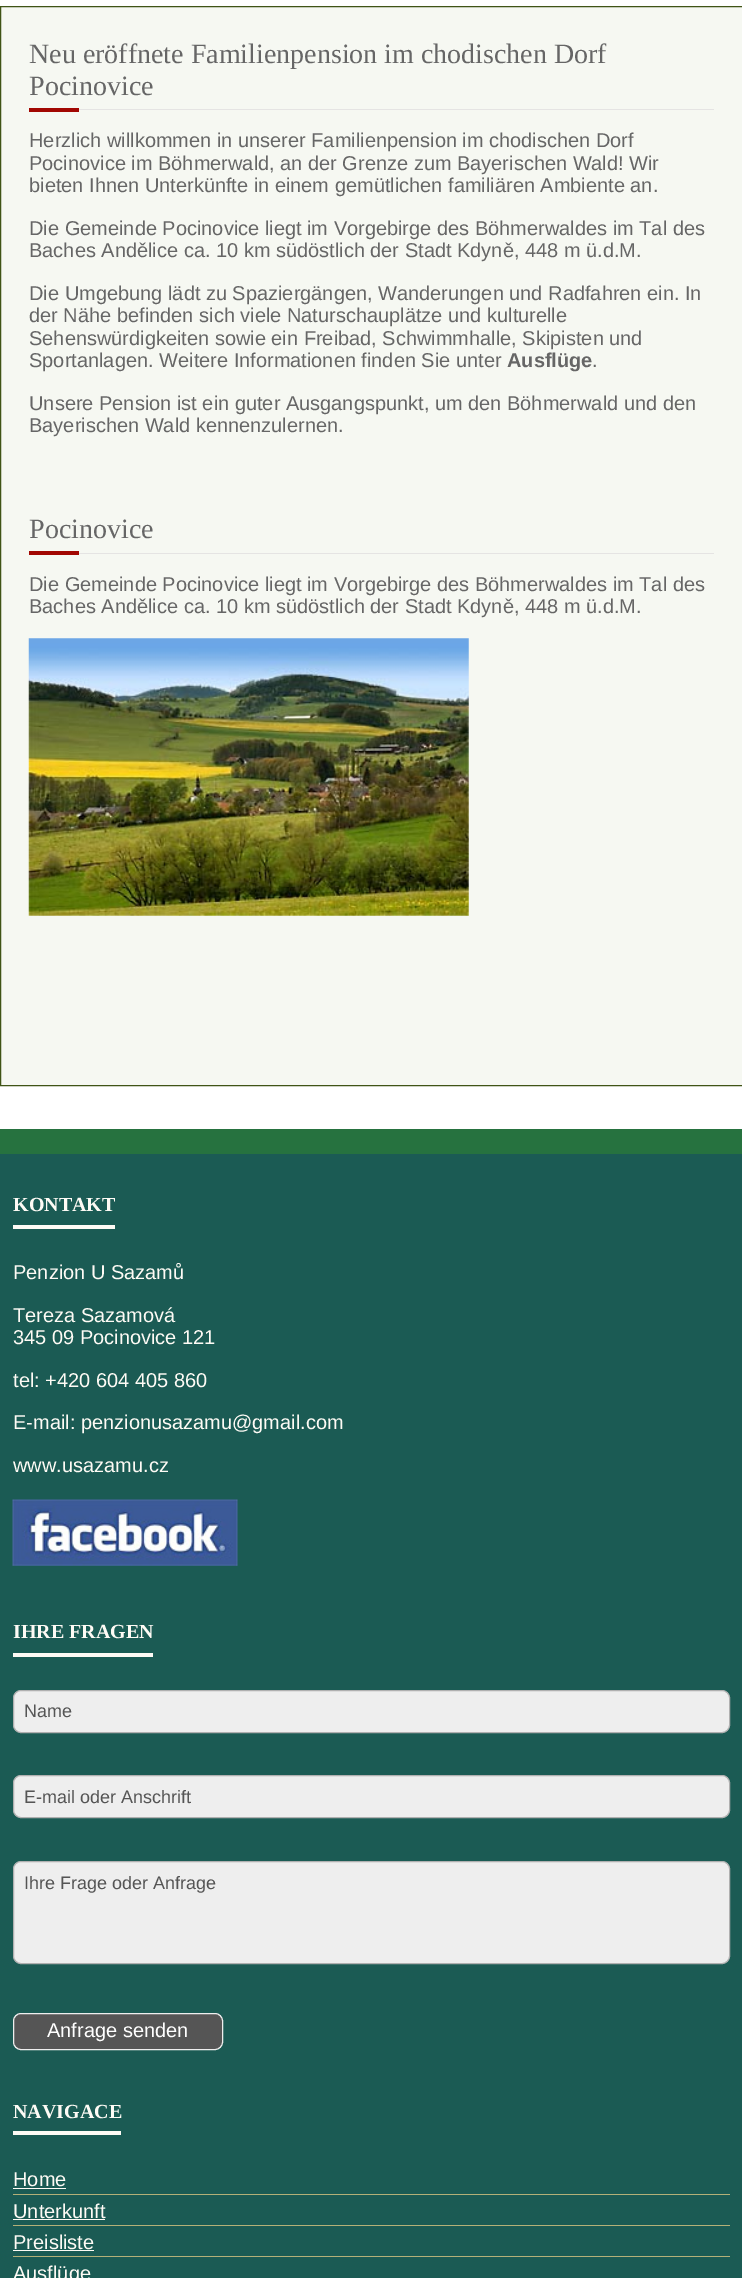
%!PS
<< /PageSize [742 2278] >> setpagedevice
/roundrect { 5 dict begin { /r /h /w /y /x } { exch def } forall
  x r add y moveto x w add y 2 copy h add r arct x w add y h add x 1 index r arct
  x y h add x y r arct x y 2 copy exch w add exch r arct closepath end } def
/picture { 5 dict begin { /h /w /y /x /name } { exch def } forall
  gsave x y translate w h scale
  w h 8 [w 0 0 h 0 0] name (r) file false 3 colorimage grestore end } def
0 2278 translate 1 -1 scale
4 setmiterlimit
0.149 0.447 0.247 setrgbcolor
0 0 742 2278 rectfill
1 setgray
0 0 742 6 rectfill
0 1086 742 43 rectfill
0.965 0.973 0.949 setrgbcolor
newpath 0.5 6.5 moveto 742.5 6.5 lineto 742.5 1085.5 lineto 0.5 1085.5 lineto closepath gsave fill grestore
0.251 0.329 0.086 setrgbcolor
stroke
0.898 0.894 0.89 setrgbcolor
79 109 635 1 rectfill
/LiberationSerif-Regular [28 0 0 -28 0 0] selectfont
0.4 setgray
29 63 moveto (Neu eröffnete Familienpension im chodischen Dorf) show
29 95 moveto (Pocinovice) show
0.635 0.027 0.008 setrgbcolor
29 108 50 4 rectfill
/LiberationSans-Regular [20 0 0 -20 0 0] selectfont
0.4 setgray
29 147 moveto (Herzlich willkommen in unserer Familienpension im chodischen Dorf) show
29 170 moveto (Pocinovice im Böhmerwald, an der Grenze zum Bayerischen Wald! Wir) show
29 192 moveto (bieten Ihnen Unterkünfte in einem gemütlichen familiären Ambiente an.) show
29 235 moveto (Die Gemeinde Pocinovice liegt im Vorgebirge des Böhmerwaldes im Tal des) show
29 257 moveto (Baches Andělice ca. 10 km südöstlich der Stadt Kdyně, 448 m ü.d.M.) show
29 300 moveto (Die Umgebung lädt zu Spaziergängen, Wanderungen und Radfahren ein. In) show
29 322 moveto (der Nähe befinden sich viele Naturschauplätze und kulturelle) show
29 345 moveto (Sehenswürdigkeiten sowie ein Freibad, Schwimmhalle, Skipisten und) show
29 367 moveto (Sportanlagen. Weitere Informationen finden Sie unter) show
/LiberationSans-Bold [20 0 0 -20 0 0] selectfont
507 367 moveto (Ausflüge) show
/LiberationSans-Regular [20 0 0 -20 0 0] selectfont
592 367 moveto (.) show
29 410 moveto (Unsere Pension ist ein guter Ausgangspunkt, um den Böhmerwald und den) show
29 432 moveto (Bayerischen Wald kennenzulernen.) show
0.898 0.894 0.89 setrgbcolor
79 553 635 1 rectfill
/LiberationSerif-Regular [28 0 0 -28 0 0] selectfont
0.4 setgray
29 538 moveto (Pocinovice) show
0.635 0.027 0.008 setrgbcolor
29 551 50 4 rectfill
/LiberationSans-Regular [20 0 0 -20 0 0] selectfont
0.4 setgray
29 591 moveto (Die Gemeinde Pocinovice liegt im Vorgebirge des Böhmerwaldes im Tal des) show
29 613 moveto (Baches Andělice ca. 10 km südöstlich der Stadt Kdyně, 448 m ü.d.M.) show
(img1.rgb) 28 638 441 278 picture
0.106 0.357 0.329 setrgbcolor
0 1154 742 1124 rectfill
/LiberationSerif-Bold [20 0 0 -20 0 0] selectfont
0.996 0.984 0.961 setrgbcolor
13 1211 moveto (KONTAKT) show
13 1225 102 4 rectfill
/LiberationSans-Regular [20 0 0 -20 0 0] selectfont
13 1279 moveto (Penzion U Sazamů) show
13 1322 moveto (Tereza Sazamová) show
13 1344 moveto (345 09 Pocinovice 121) show
13 1387 moveto (tel: +420 604 405 860) show
13 1429 moveto (E-mail: penzionusazamu@gmail.com) show
13 1472 moveto (www.usazamu.cz) show
(img2.rgb) 12 1499 226 67 picture
/LiberationSerif-Bold [20 0 0 -20 0 0] selectfont
13 1638 moveto (IHRE FRAGEN) show
13 1653 140 4 rectfill
0.933 setgray
13.5 1690.5 716 42 7.5 roundrect gsave fill grestore
0.69 setgray
stroke
/LiberationSans-Regular [18 0 0 -18 0 0] selectfont
0.333 setgray
24 1717 moveto (Name) show
0.933 setgray
13.5 1775.5 716 42 7.5 roundrect gsave fill grestore
0.69 setgray
stroke
0.333 setgray
24 1803 moveto (E-mail oder Anschrift) show
0.933 setgray
13.5 1861.5 716 102 7.5 roundrect gsave fill grestore
0.69 setgray
stroke
0.333 setgray
24 1889 moveto (Ihre Frage oder Anfrage) show
13.5 2013.5 209 36 7.5 roundrect gsave fill grestore
0.933 setgray
stroke
/LiberationSans-Regular [20 0 0 -20 0 0] selectfont
1 setgray
47 2037 moveto (Anfrage senden) show
/LiberationSerif-Bold [20 0 0 -20 0 0] selectfont
0.996 0.984 0.961 setrgbcolor
13 2118 moveto (NAVIGACE) show
13 2131 108 4 rectfill
/LiberationSans-Regular [20 0 0 -20 0 0] selectfont
13 2186 moveto (Home) show
13 2188 53 1 rectfill
0.706 0.69 0.471 setrgbcolor
13 2194 717 1 rectfill
0.996 0.984 0.961 setrgbcolor
13 2218 moveto (Unterkunft) show
13 2219 92 1 rectfill
0.706 0.69 0.471 setrgbcolor
13 2225 717 1 rectfill
0.996 0.984 0.961 setrgbcolor
13 2249 moveto (Preisliste) show
13 2250 81 1 rectfill
0.706 0.69 0.471 setrgbcolor
13 2256 717 1 rectfill
0.996 0.984 0.961 setrgbcolor
13 2280 moveto (Ausflüge) show
showpage
